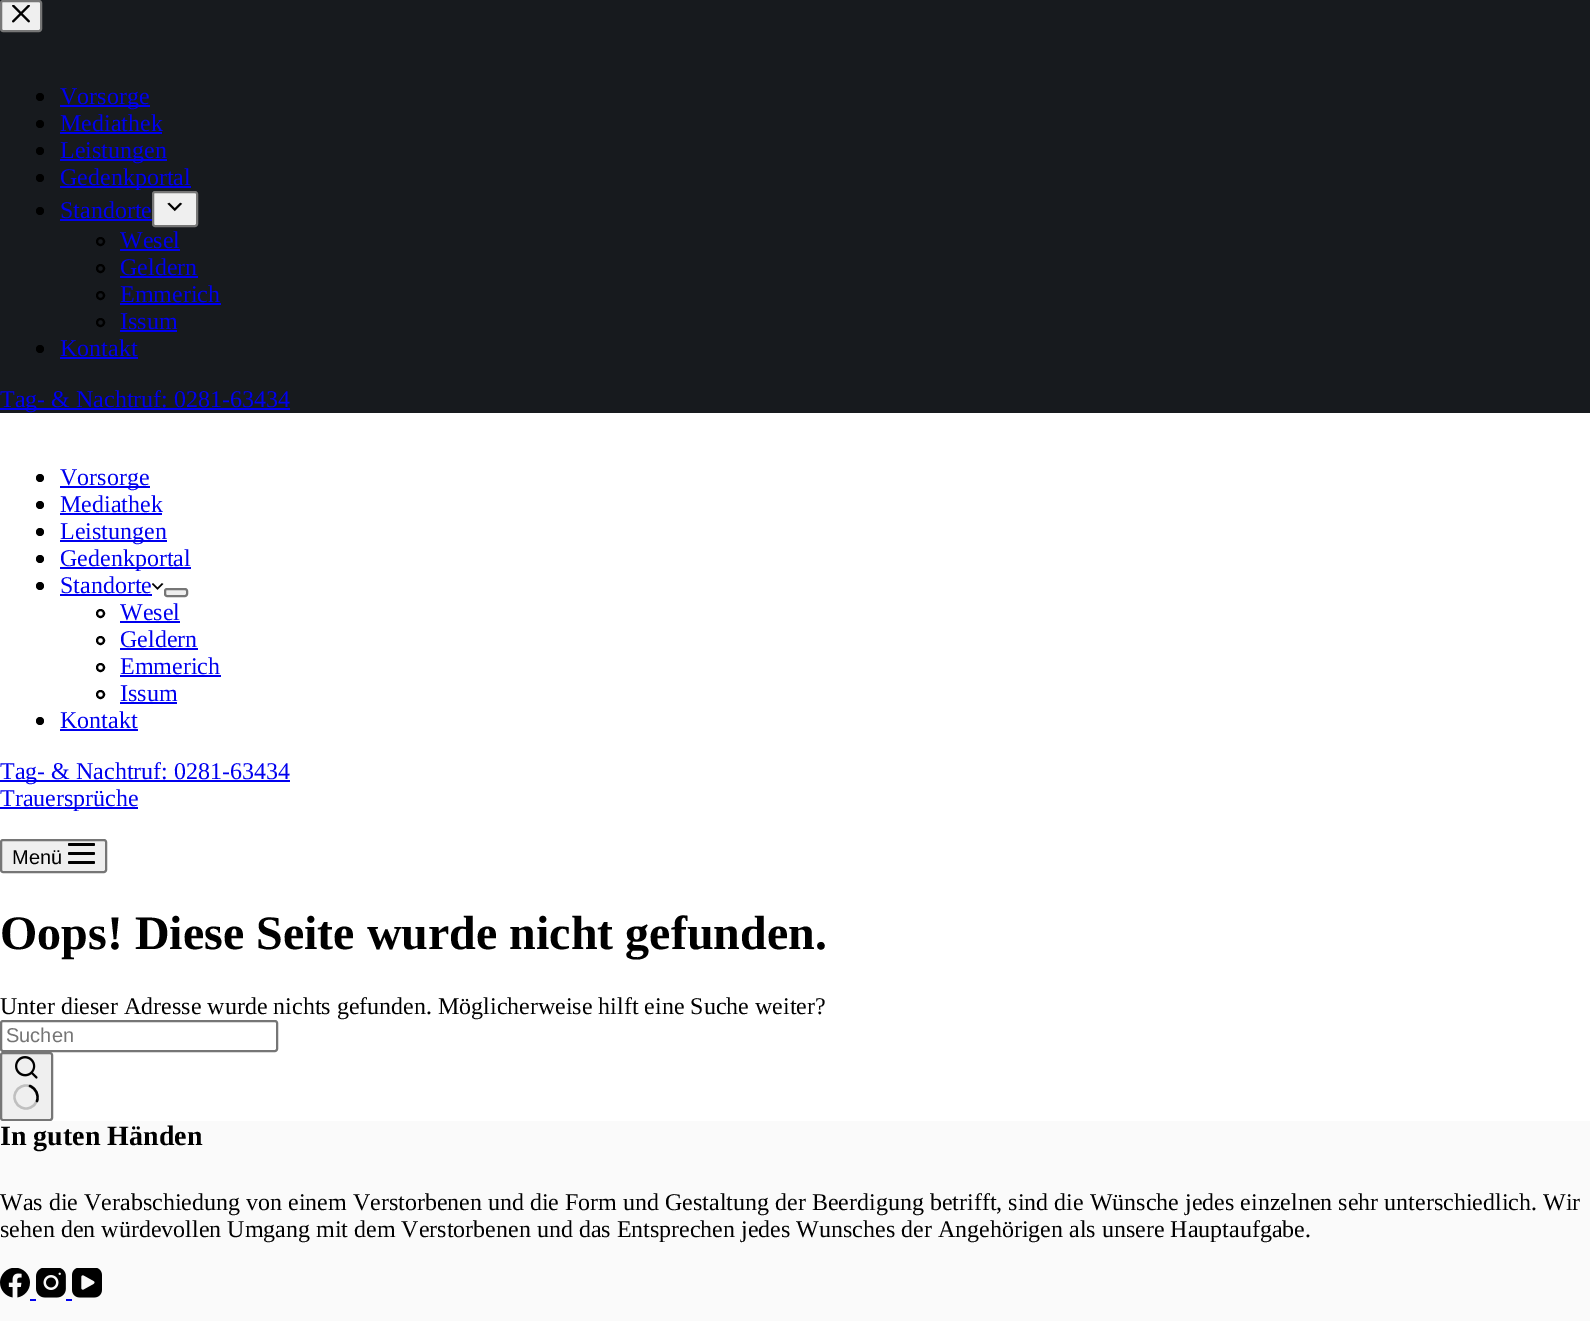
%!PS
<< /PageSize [1590 1321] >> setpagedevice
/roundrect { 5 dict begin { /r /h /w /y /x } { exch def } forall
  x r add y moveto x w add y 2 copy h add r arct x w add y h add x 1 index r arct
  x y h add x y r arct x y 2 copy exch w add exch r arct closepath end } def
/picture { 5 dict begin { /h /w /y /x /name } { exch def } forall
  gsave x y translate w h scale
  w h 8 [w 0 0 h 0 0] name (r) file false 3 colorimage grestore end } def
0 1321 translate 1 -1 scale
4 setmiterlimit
1 setgray
0 0 1590 1321 rectfill
0.09 0.102 0.118 setrgbcolor
0 0 1590 413 rectfill
0.937 setgray
1 1 40 30 2 roundrect gsave fill grestore
0.463 setgray
2 setlinewidth
stroke
(img1.rgb) 12 5 18 18 picture
0 setgray
newpath 40 97 4 0 360 arc closepath fill
0 0 0.933 setrgbcolor
60 105 90 2 rectfill
/LiberationSerif-Regular [24 0 0 -24 0 0] selectfont
60 104 moveto (Vorsorge) show
0 setgray
newpath 40 124 4 0 360 arc closepath fill
0 0 0.933 setrgbcolor
60 131 moveto (Mediathek) show
60 132 102 2 rectfill
0 setgray
newpath 40 151 4 0 360 arc closepath fill
0 0 0.933 setrgbcolor
60 159 107 2 rectfill
60 158 moveto (Leistungen) show
0 setgray
newpath 40 178 4 0 360 arc closepath fill
0 0 0.933 setrgbcolor
60 186 131 2 rectfill
60 185 moveto (Gedenkportal) show
0 setgray
newpath 40 211 4 0 360 arc closepath fill
0 0 0.933 setrgbcolor
60 218 moveto (Standorte) show
60 219 92 2 rectfill
0.937 setgray
153 192 44 34 2 roundrect gsave fill grestore
0.463 setgray
stroke
(img2.rgb) 167 202 16 10 picture
0 setgray
newpath 100.5 241.5 3.5 0 360 arc closepath stroke
0 0 0.933 setrgbcolor
120 248 moveto (Wesel) show
120 249 60 2 rectfill
0 setgray
newpath 100.5 268.5 3.5 0 360 arc closepath stroke
0 0 0.933 setrgbcolor
120 275 moveto (Geldern) show
120 276 78 2 rectfill
0 setgray
newpath 100.5 295.5 3.5 0 360 arc closepath stroke
0 0 0.933 setrgbcolor
120 302 moveto (Emmerich) show
120 303 101 2 rectfill
0 setgray
newpath 100.5 322.5 3.5 0 360 arc closepath stroke
0 0 0.933 setrgbcolor
120 329 moveto (Issum) show
120 330 57 2 rectfill
0 setgray
newpath 40 349 4 0 360 arc closepath fill
0 0 0.933 setrgbcolor
60 356 moveto (Kontakt) show
60 357 78 2 rectfill
0 408 290 2 rectfill
0 407 moveto (Tag- & Nachtruf: 0281-63434) show
0 setgray
newpath 40 478 4 0 360 arc closepath fill
0 0 0.933 setrgbcolor
60 486 90 2 rectfill
60 485 moveto (Vorsorge) show
0 setgray
newpath 40 505 4 0 360 arc closepath fill
0 0 0.933 setrgbcolor
60 512 moveto (Mediathek) show
60 513 102 2 rectfill
0 setgray
newpath 40 532 4 0 360 arc closepath fill
0 0 0.933 setrgbcolor
60 540 107 2 rectfill
60 539 moveto (Leistungen) show
0 setgray
newpath 40 559 4 0 360 arc closepath fill
0 0 0.933 setrgbcolor
60 567 131 2 rectfill
60 566 moveto (Gedenkportal) show
0 setgray
newpath 40 586 4 0 360 arc closepath fill
0 0 0.933 setrgbcolor
60 593 moveto (Standorte) show
60 594 92 2 rectfill
(img3.rgb) 152 583 12 7 picture
0.937 setgray
165 589 22 7 2 roundrect gsave fill grestore
0.463 setgray
stroke
0 setgray
newpath 100.5 613.5 3.5 0 360 arc closepath stroke
0 0 0.933 setrgbcolor
120 620 moveto (Wesel) show
120 621 60 2 rectfill
0 setgray
newpath 100.5 640.5 3.5 0 360 arc closepath stroke
0 0 0.933 setrgbcolor
120 647 moveto (Geldern) show
120 648 78 2 rectfill
0 setgray
newpath 100.5 667.5 3.5 0 360 arc closepath stroke
0 0 0.933 setrgbcolor
120 674 moveto (Emmerich) show
120 675 101 2 rectfill
0 setgray
newpath 100.5 694.5 3.5 0 360 arc closepath stroke
0 0 0.933 setrgbcolor
120 701 moveto (Issum) show
120 702 57 2 rectfill
0 setgray
newpath 40 721 4 0 360 arc closepath fill
0 0 0.933 setrgbcolor
60 728 moveto (Kontakt) show
60 729 78 2 rectfill
0 780 290 2 rectfill
0 779 moveto (Tag- & Nachtruf: 0281-63434) show
0 807 138 2 rectfill
0 806 moveto (Trauersprüche) show
0.937 setgray
1 840 105 32 2 roundrect gsave fill grestore
0.463 setgray
stroke
0 setgray
68 843 27 3 1.5 roundrect fill
/LiberationSans-Regular [20 0 0 -20 0 0] selectfont
12 864 moveto (Menü) show
68 852 27 3 1.5 roundrect fill
68 861 27 3 1.5 roundrect fill
/LiberationSerif-Bold [48 0 0 -48 0 0] selectfont
0 949 moveto (Oops! Diese Seite wurde nicht gefunden.) show
/LiberationSerif-Regular [24 0 0 -24 0 0] selectfont
0 1014 moveto (Unter dieser Adresse wurde nichts gefunden. Möglicherweise hilft eine Suche weiter?) show
0.463 setgray
1 1021 276 30 2 roundrect stroke
/LiberationSans-Regular [20 0 0 -20 0 0] selectfont
0.459 setgray
6 1042 moveto (Suchen) show
0.937 setgray
1 1053 51 67 2 roundrect gsave fill grestore
0.463 setgray
stroke
(img4.rgb) 15 1056 23 23 picture
0.749 setgray
2.3 setlinewidth
newpath 26 1097 11.5 0 360 arc closepath stroke
0 setgray
1 setlinecap
newpath 30 1086 moveto 36 1088.5 39 1095 37 1101 curveto stroke
0.98 setgray
0 1121 1590 200 rectfill
/LiberationSerif-Bold [28 0 0 -28 0 0] selectfont
0 setgray
0 1145 moveto (In guten Händen) show
/LiberationSerif-Regular [24 0 0 -24 0 0] selectfont
0 1210 moveto (Was die Verabschiedung von einem Verstorbenen und die Form und Gestaltung der Beerdigung betrifft, sind die Wünsche jedes einzelnen sehr unterschiedlich. Wir) show
0 1237 moveto (sehen den würdevollen Umgang mit dem Verstorbenen und das Entsprechen jedes Wunsches der Angehörigen als unsere Hauptaufgabe.) show
(img5.rgb) 0 1268 30 30 picture
(img6.rgb) 36 1268 30 30 picture
(img7.rgb) 72 1268 30 30 picture
0 0 0.933 setrgbcolor
30 1299 6 2 rectfill
66 1299 6 2 rectfill
showpage
